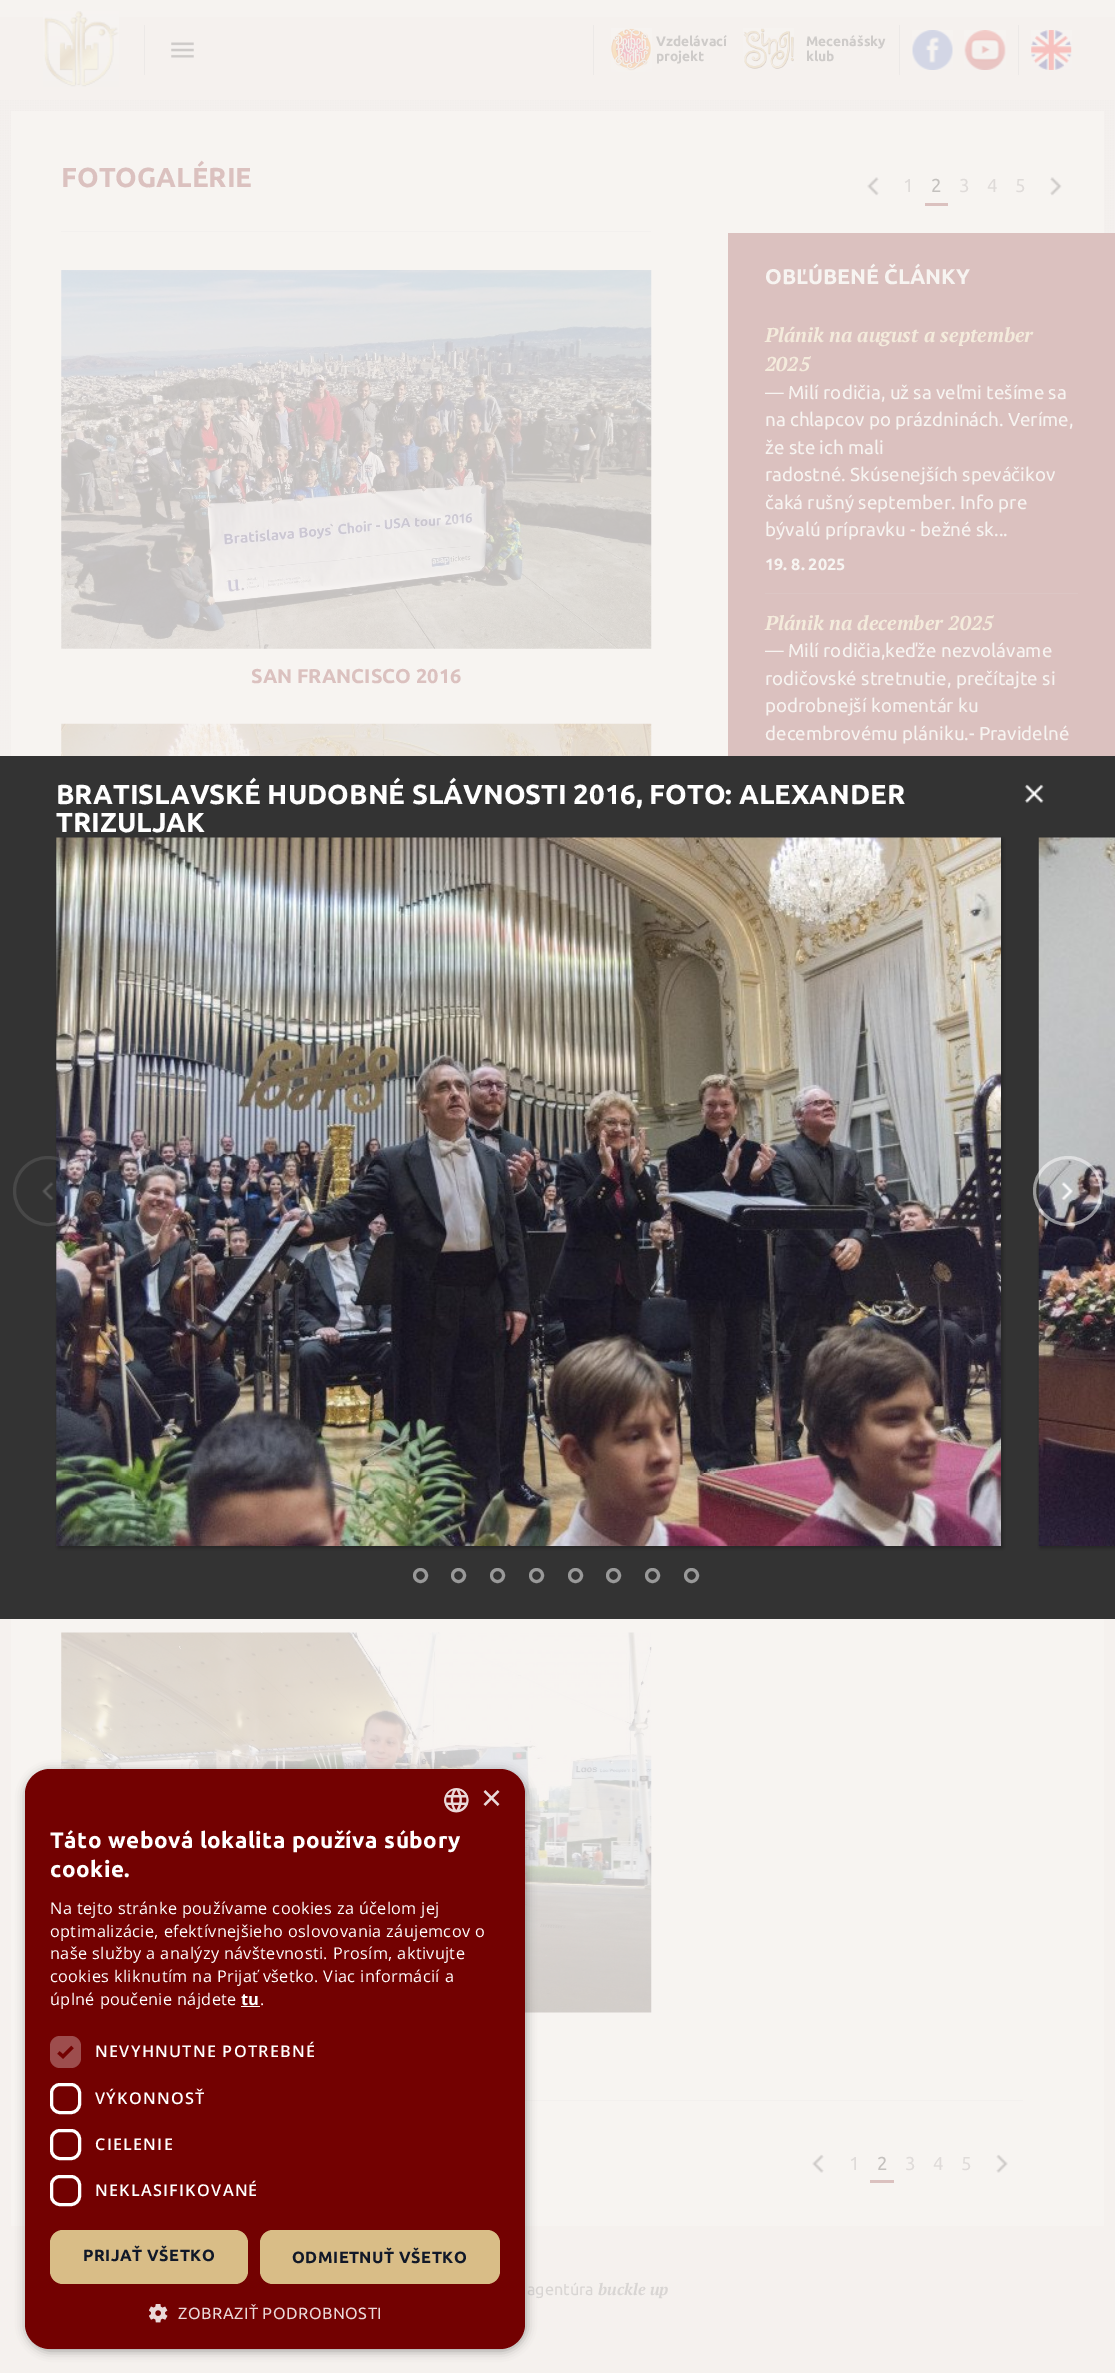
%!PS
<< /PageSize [1115 2373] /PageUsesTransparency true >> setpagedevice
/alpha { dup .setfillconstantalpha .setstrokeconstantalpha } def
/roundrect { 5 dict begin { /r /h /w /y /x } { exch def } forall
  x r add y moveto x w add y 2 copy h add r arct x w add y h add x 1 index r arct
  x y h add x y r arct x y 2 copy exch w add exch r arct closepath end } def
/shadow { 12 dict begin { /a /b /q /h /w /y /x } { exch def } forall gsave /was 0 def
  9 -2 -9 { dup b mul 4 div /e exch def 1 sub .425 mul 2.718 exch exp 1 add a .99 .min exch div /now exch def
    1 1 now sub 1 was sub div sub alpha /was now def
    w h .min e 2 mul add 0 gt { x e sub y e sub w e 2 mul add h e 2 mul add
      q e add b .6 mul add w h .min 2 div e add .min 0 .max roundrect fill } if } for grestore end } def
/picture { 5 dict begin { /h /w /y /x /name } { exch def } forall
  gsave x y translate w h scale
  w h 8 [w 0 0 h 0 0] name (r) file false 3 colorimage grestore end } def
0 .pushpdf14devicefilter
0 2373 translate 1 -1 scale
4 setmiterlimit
0.961 0.945 0.933 setrgbcolor
0 0 1115 2373 rectfill
(img1.rgb) 0 100 1115 656 picture
gsave newpath 0 0 moveto 1115 0 lineto 1115 17 lineto 0 17 lineto closepath clip newpath
<< /ShadingType 2 /ColorSpace /DeviceRGB /Coords [558 0 558 100] /Extend [true true] /Function << /FunctionType 2 /Domain [0 1] /C0 [0.969 0.957 0.945] /C1 [0.953 0.941 0.933] /N 1 >> >> shfill grestore
(img2.rgb) 43 11 76 76 picture
0.925 0.914 0.906 setrgbcolor
144 25 1 50 rectfill
(img3.rgb) 171 42 23 16 picture
593 25 1 50 rectfill
(img4.rgb) 611 28 41 44 picture
/Ubuntu-Bold [13.75 0 0 -13.75 0 0] selectfont
0.808 0.796 0.788 setrgbcolor
656 46 moveto (Vzdelávací) show
656 61 moveto (projekt) show
(img5.rgb) 743 28 51 41 picture
806 46 moveto (Mecenášsky) show
806 61 moveto (klub) show
0.925 0.914 0.906 setrgbcolor
899 25 1 50 rectfill
(img6.rgb) 912 30 41 40 picture
(img7.rgb) 964 30 42 40 picture
1018 25 1 50 rectfill
(img8.rgb) 1031 30 41 40 picture
0.969 0.957 0.945 setrgbcolor
11 111 1093 2115 rectfill
0.953 0.941 0.933 setrgbcolor
61 231 590 1 rectfill
/Ubuntu-Bold [27.5 0 0 -27.5 0 0] selectfont
0.859 0.757 0.749 setrgbcolor
61 187 moveto (FOTOGALÉRIE) show
(img9.rgb) 61 270 591 379 picture
/Ubuntu-Bold [20 0 0 -20 0 0] selectfont
251 683 moveto (SAN FRANCISCO 2016) show
(img10.rgb) 61 723 591 33 picture
(img11.rgb) 61 1632 591 381 picture
(img12.rgb) 867 177 12 19 picture
/Ubuntu-Regular [18.75 0 0 -18.75 0 0] selectfont
0.875 0.859 0.851 setrgbcolor
903 192 moveto (1) show
0.859 0.757 0.749 setrgbcolor
925 203 23 3 rectfill
0.769 0.757 0.745 setrgbcolor
931 192 moveto (2) show
0.875 0.859 0.851 setrgbcolor
959 192 moveto (3) show
987 192 moveto (4) show
1015 192 moveto (5) show
(img13.rgb) 1050 177 12 19 picture
0.859 0.757 0.749 setrgbcolor
728 233 387 523 rectfill
/Ubuntu-Bold [21.25 0 0 -21.25 0 0] selectfont
0.969 0.957 0.945 setrgbcolor
765 284 moveto (OBĽÚBENÉ ČLÁNKY) show
0.863 0.776 0.769 setrgbcolor
765 593 313 1 rectfill
/PTSerif-BoldItalic [20 0 0 -20 0 0] selectfont
0.957 0.922 0.863 setrgbcolor
765 342 moveto (Plánik na august a september) show
765 371 moveto (2025) show
/Ubuntu-Regular [18.75 0 0 -18.75 0 0] selectfont
0.969 0.957 0.945 setrgbcolor
765 399 moveto (— Milí rodičia, už sa veľmi tešíme sa) show
765 426 moveto (na chlapcov po prázdninách. Veríme,) show
765 454 moveto (že ste ich mali) show
765 481 moveto (radostné. Skúsenejších speváčikov) show
765 509 moveto (čaká rušný september. Info pre) show
765 536 moveto (bývalú prípravku - bežné sk...) show
/Ubuntu-Bold [16.25 0 0 -16.25 0 0] selectfont
765 570 moveto (19. 8. 2025) show
/PTSerif-BoldItalic [20 0 0 -20 0 0] selectfont
0.957 0.922 0.863 setrgbcolor
765 630 moveto (Plánik na december 2025) show
/Ubuntu-Regular [18.75 0 0 -18.75 0 0] selectfont
0.969 0.957 0.945 setrgbcolor
765 657 moveto (— Milí rodičia,keďže nezvolávame) show
765 685 moveto (rodičovské stretnutie, prečítajte si) show
765 712 moveto (podrobnejší komentár ku) show
765 740 moveto (decembrovému plániku.- Pravidelné) show
0.953 0.941 0.933 setrgbcolor
525 2100 498 1 rectfill
(img14.rgb) 812 2154 12 19 picture
0.875 0.859 0.851 setrgbcolor
849 2170 moveto (1) show
0.859 0.757 0.749 setrgbcolor
870 2180 24 3 rectfill
0.769 0.757 0.745 setrgbcolor
877 2170 moveto (2) show
0.875 0.859 0.851 setrgbcolor
905 2170 moveto (3) show
933 2170 moveto (4) show
961 2170 moveto (5) show
(img15.rgb) 996 2154 12 19 picture
/Ubuntu-Regular [16.25 0 0 -16.25 0 0] selectfont
0.847 0.835 0.827 setrgbcolor
527 2295 moveto (agentúra) show
/PTSerif-BoldItalic [16.25 0 0 -16.25 0 0] selectfont
598 2295 moveto (buckle up) show
0.2 setgray
0 756 1115 863 rectfill
/Ubuntu-Bold [27.5 0 0 -27.5 0 0] selectfont
1 setgray
56 804 moveto (BRATISLAVSKÉ HUDOBNÉ SLÁVNOSTI 2016, FOTO: ALEXANDER) show
56 832 moveto (TRIZULJAK) show
(img16.rgb) 1024 784 20 19 picture
0 setgray
58 839 945 709 0 2 0.3 shadow
(img17.rgb) 56 837 945 709 picture
1040 839 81 709 0 2 0.3 shadow
(img18.rgb) 1038 837 77 709 picture
0.6 setgray
3 setlinewidth
newpath 420.5 1575.5 6 0 360 arc closepath stroke
newpath 458.5 1575.5 6 0 360 arc closepath stroke
newpath 497.5 1575.5 6 0 360 arc closepath stroke
newpath 536.5 1575.5 6 0 360 arc closepath stroke
newpath 575.5 1575.5 6 0 360 arc closepath stroke
newpath 613.5 1575.5 6 0 360 arc closepath stroke
newpath 652.5 1575.5 6 0 360 arc closepath stroke
newpath 691.5 1575.5 6 0 360 arc closepath stroke
(img19.rgb) 42 1182 12 18 picture
0.1 alpha
1 setgray
newpath 48 1191 33.5 0 360 arc closepath stroke
1 alpha
(img20.rgb) 1061 1182 12 19 picture
0.5 alpha
newpath 1068 1191 33.5 0 360 arc closepath stroke
1 alpha
0 setgray
26 1771 500 580 25 5 0.35 shadow
0.451 0.004 0.004 setrgbcolor
25 1769 500 580 25 roundrect fill
(img21.rgb) 444 1788 25 25 picture
/LiberationSans-Regular [36 0 0 -36 0 0] selectfont
0.918 0.851 0.851 setrgbcolor
481 1810 moveto (×) show
/Ubuntu-Bold [22.5 0 0 -22.5 0 0] selectfont
1 setgray
50 1848 moveto 0.5 0 (Táto webová lokalita používa súbory) ashow
50 1877 moveto 0.5 0 (cookie.) ashow
/OpenSans-Regular [16.25 0 0 -16.25 0 0] selectfont
50 1914 moveto 0.38 0 (Na tejto stránke používame cookies za účelom jej) ashow
50 1937 moveto 0.38 0 (optimalizácie, efektívnejšieho oslovovania záujemcov o) ashow
50 1959 moveto 0.38 0 (naše služby a analýzy návštevnosti. Prosím, aktivujte) ashow
50 1982 moveto 0.38 0 (cookies kliknutím na Prijať všetko. Viac informácií a) ashow
50 2005 moveto 0.38 0 (úplné poučenie nájdete) ashow
/OpenSans-Bold [16.25 0 0 -16.25 0 0] selectfont
241 2005 moveto 0.38 0 (tu) ashow
/OpenSans-Regular [16.25 0 0 -16.25 0 0] selectfont
260 2005 moveto 0.38 0 (.) ashow
241 2006 19 1 rectfill
0.616 0.302 0.302 setrgbcolor
50 2036 31 32 10 roundrect fill
0.451 0.004 0.004 setrgbcolor
3.3 setlinewidth
newpath 58.5 2052.5 moveto 63 2056.5 lineto 72.5 2047 lineto stroke
/OpenSans-SemiBold [16.25 0 0 -16.25 0 0] selectfont
1 setgray
95 2057 moveto 1.25 0 (NEVYHNUTNE POTREBNÉ) ashow
3 setlinewidth
51.5 2084.5 28 28 8.5 roundrect stroke
95 2104 moveto 1.25 0 (VÝKONNOSŤ) ashow
51.5 2130.5 28 28 8.5 roundrect stroke
95 2150 moveto 1.25 0 (CIELENIE) ashow
51.5 2176.5 28 28 8.5 roundrect stroke
95 2196 moveto 1.25 0 (NEKLASIFIKOVANÉ) ashow
0.851 0.741 0.529 setrgbcolor
50 2230 198 54 13 roundrect fill
/Ubuntu-Bold [16.25 0 0 -16.25 0 0] selectfont
0.067 0.094 0.157 setrgbcolor
83 2261 moveto 0.5 0 (PRIJAŤ VŠETKO) ashow
0.851 0.741 0.529 setrgbcolor
260 2230 240 54 13 roundrect fill
0.067 0.094 0.157 setrgbcolor
292 2263 moveto 0.5 0 (ODMIETNUŤ VŠETKO) ashow
(img22.rgb) 149 2304 19 19 picture
/Ubuntu-Regular [16.25 0 0 -16.25 0 0] selectfont
0.918 0.851 0.851 setrgbcolor
178 2319 moveto 0.5 0 (ZOBRAZIŤ PODROBNOSTI) ashow
.poppdf14devicefilter showpage
